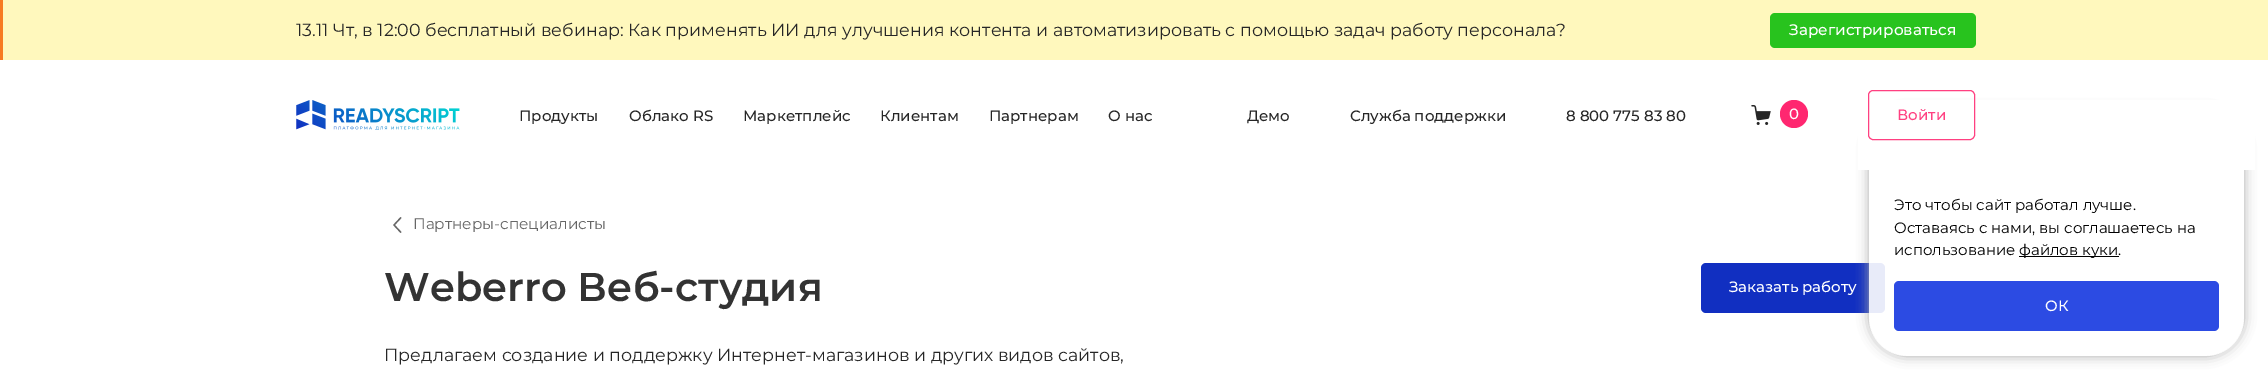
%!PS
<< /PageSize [2268 381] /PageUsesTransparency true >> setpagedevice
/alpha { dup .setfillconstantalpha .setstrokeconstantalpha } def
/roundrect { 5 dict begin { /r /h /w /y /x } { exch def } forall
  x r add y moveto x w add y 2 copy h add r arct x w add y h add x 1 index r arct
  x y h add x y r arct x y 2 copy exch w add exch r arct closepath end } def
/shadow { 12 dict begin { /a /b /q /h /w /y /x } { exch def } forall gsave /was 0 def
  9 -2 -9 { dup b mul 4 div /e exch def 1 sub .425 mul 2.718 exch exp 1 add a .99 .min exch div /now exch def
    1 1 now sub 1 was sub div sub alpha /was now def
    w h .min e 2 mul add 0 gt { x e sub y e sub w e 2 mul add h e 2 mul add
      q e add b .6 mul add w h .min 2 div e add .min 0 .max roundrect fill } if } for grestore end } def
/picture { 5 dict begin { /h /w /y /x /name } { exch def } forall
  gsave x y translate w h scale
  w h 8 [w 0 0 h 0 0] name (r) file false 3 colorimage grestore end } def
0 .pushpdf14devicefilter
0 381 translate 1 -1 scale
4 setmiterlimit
1 setgray
0 0 2268 381 rectfill
1 0.973 0.741 setrgbcolor
3 0 2265 60 rectfill
0.969 0.482 0.133 setrgbcolor
0 0 3 60 rectfill
/Montserrat-Regular [17.5 0 0 -17.5 0 0] selectfont
0.149 setgray
296 36 moveto (13.11 Чт, в 12:00 бесплатный вебинар: Как применять ИИ для улучшения контента и автоматизировать с помощью задач работу персонала?) show
0.157 0.765 0.118 setrgbcolor
1770 13 206 35 5 roundrect fill
/Montserrat-Medium [15.25 0 0 -15.25 0 0] selectfont
1 setgray
1789 35 moveto (Зарегистрироваться) show
0.067 0.184 0.757 setrgbcolor
1701 263 184 50 5 roundrect fill
gsave
newpath 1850 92 moveto 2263 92 lineto 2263 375 lineto 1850 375 lineto closepath 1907 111 moveto 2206 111 lineto 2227 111 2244 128 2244 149 curveto 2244 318 lineto 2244 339 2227 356 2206 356 curveto 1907 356 lineto 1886 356 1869 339 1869 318 curveto 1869 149 lineto 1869 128 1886 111 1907 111 curveto closepath eoclip newpath
0.667 setgray
1869 111 375 245 38 6 1 shadow
grestore
0.9 alpha
1 setgray
1869 111 375 245 38 roundrect fill
1 alpha
1858 100 397 70 rectfill
(img1.rgb) 296 100 164 30 picture
/Montserrat-Medium [15 0 0 -15 0 0] selectfont
0.149 setgray
519 121 moveto (Продукты) show
629 121 moveto (Облако RS) show
743 121 moveto (Маркетплейс) show
880 121 moveto (Клиентам) show
989 121 moveto (Партнерам) show
1108 121 moveto (О нас) show
1247 121 moveto (Демо) show
1350 121 moveto (Служба поддержки) show
1566 121 moveto (8 800 775 83 80) show
(img2.rgb) 1751 105 20 20 picture
1 0.153 0.439 setrgbcolor
newpath 1794 114 14 0 360 arc closepath fill
1 setgray
1789 119 moveto (0) show
1 0.251 0.506 setrgbcolor
1868.5 90.5 106 49 4.5 roundrect stroke
1897 120 moveto (Войти) show
0.4 setgray
1.3 setlinewidth
newpath 401 232.5 moveto 394 225 lineto 401 217.5 lineto stroke
/Montserrat-Regular [15.25 0 0 -15.25 0 0] selectfont
413 229 moveto (Партнеры-специалисты) show
/Montserrat-SemiBold [40 0 0 -40 0 0] selectfont
0.2 setgray
384 301 moveto (Weberro Веб-студия) show
/Montserrat-Medium [15 0 0 -15 0 0] selectfont
1 setgray
1729 292 moveto (Заказать работу) show
/Montserrat-Regular [17.5 0 0 -17.5 0 0] selectfont
0.149 setgray
384 361 moveto (Предлагаем создание и поддержку Интернет-магазинов и других видов сайтов,) show
/Montserrat-Regular [15 0 0 -15 0 0] selectfont
0 setgray
1894 210 moveto (Это чтобы сайт работал лучше.) show
1894 233 moveto (Оставаясь с нами, вы соглашаетесь на) show
1894 255 moveto (использование) show
2019 256 100 1 rectfill
2019 255 moveto (файлов куки.) show
0.173 0.294 0.89 setrgbcolor
1894 281 325 50 5 roundrect fill
/Montserrat-Medium [15 0 0 -15 0 0] selectfont
1 setgray
2045 311 moveto (ОК) show
.poppdf14devicefilter showpage
